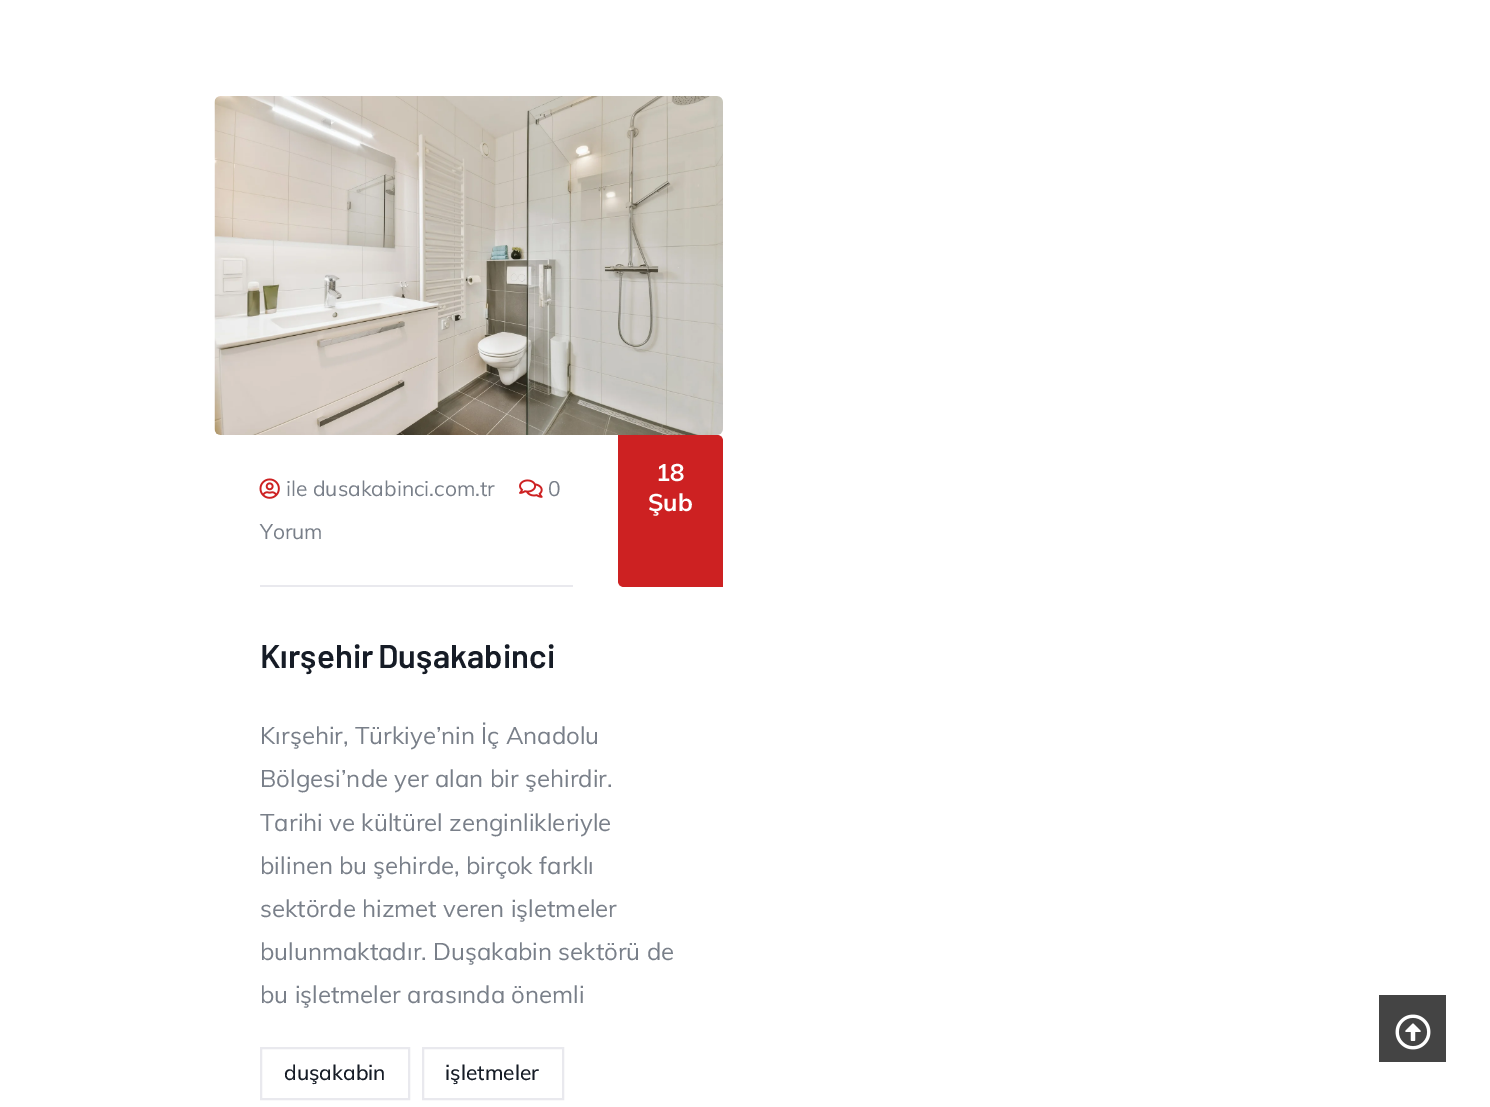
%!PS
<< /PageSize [1490 1107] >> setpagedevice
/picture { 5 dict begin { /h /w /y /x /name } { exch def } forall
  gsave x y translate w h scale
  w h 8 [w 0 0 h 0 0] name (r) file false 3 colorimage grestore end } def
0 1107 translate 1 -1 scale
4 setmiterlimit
1 setgray
0 0 1490 1107 rectfill
(img1.rgb) 214 96 509 339 picture
(img2.rgb) 519 479 24 19 picture
/Muli-Regular [21 0 0 -21 0 0] selectfont
0.475 0.498 0.537 setrgbcolor
548 496 moveto (0) show
260 539 moveto (Yorum) show
(img3.rgb) 259 478 21 21 picture
286 496 moveto (ile dusakabinci.com.tr) show
0.804 0.129 0.133 setrgbcolor
newpath 618 435 moveto 717 435 lineto 720.5 435 723 437.5 723 441 curveto 723 587 lineto 624 587 lineto 620.5 587 618 584.5 618 581 curveto closepath fill
/Muli-Bold [24 0 0 -24 0 0] selectfont
1 setgray
656 481 moveto (18) show
648 511 moveto (Şub) show
0.914 0.914 0.933 setrgbcolor
260 585 313 2 rectfill
/Barlow-SemiBold [33 0 0 -33 0 0] selectfont
0.086 0.11 0.149 setrgbcolor
260 668 moveto -2 0 32 (Kırşehir Duşakabinci) widthshow
/Muli-Regular [24 0 0 -24 0 0] selectfont
0.475 0.498 0.537 setrgbcolor
260 744 moveto (Kırşehir, Türkiye’nin İç Anadolu) show
260 787 moveto (Bölgesi’nde yer alan bir şehirdir.) show
260 831 moveto (Tarihi ve kültürel zenginlikleriyle) show
260 874 moveto (bilinen bu şehirde, birçok farklı) show
260 917 moveto (sektörde hizmet veren işletmeler) show
260 960 moveto (bulunmaktadır. Duşakabin sektörü de) show
260 1003 moveto (bu işletmeler arasında önemli) show
0.914 0.914 0.933 setrgbcolor
2 setlinewidth
261 1048 148 51 rectstroke
/Muli-Medium [21 0 0 -21 0 0] selectfont
0.086 0.11 0.149 setrgbcolor
284 1080 moveto (duşakabin) show
0.914 0.914 0.933 setrgbcolor
423 1048 140 51 rectstroke
0.086 0.11 0.149 setrgbcolor
445 1080 moveto (işletmeler) show
0.267 setgray
1379 995 67 67 rectfill
(img4.rgb) 1395 1014 36 36 picture
showpage
